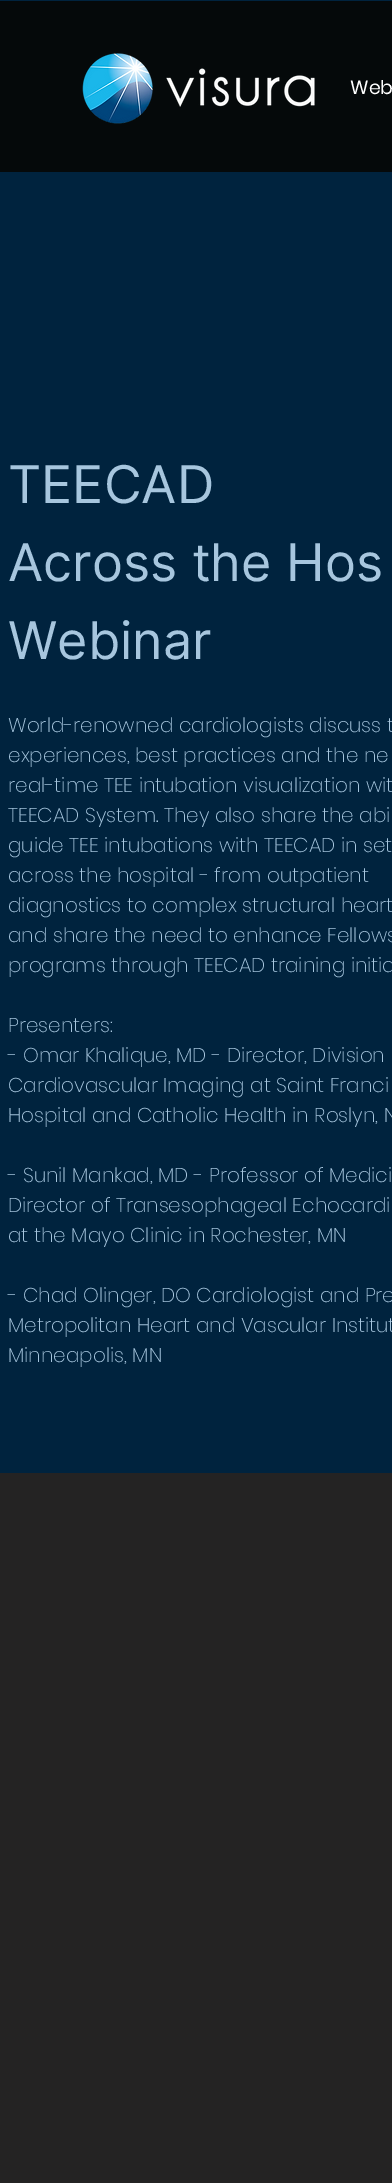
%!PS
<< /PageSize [392 2183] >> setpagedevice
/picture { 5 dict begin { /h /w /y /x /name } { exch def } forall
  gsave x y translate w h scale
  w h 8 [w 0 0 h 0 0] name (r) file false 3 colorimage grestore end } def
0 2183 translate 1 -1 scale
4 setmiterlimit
0 0.137 0.243 setrgbcolor
0 0 392 2183 rectfill
0.02 0.035 0.039 setrgbcolor
0 1 392 171 rectfill
(img1.rgb) 82 53 233 71 picture
/Poppins-Regular [19 0 0 -19 0 0] selectfont
1 setgray
350 94 moveto (Web) show
/Inter-Regular [52 0 0 -52 0 0] selectfont
0.655 0.776 0.871 setrgbcolor
8 503 moveto (TEECAD) show
8 581 moveto (Across the Hos) show
8 659 moveto (Webinar) show
/Poppins-ExtraLight [20 0 0 -20 0 0] selectfont
8 732 moveto (World-renowned cardiologists discuss t) show
8 762 moveto (experiences, best practices and the ne) show
8 792 moveto (real-time TEE intubation visualization wit) show
8 822 moveto (TEECAD System. They also share the abi) show
8 852 moveto (guide TEE intubations with TEECAD in set) show
8 882 moveto (across the hospital - from outpatient) show
8 912 moveto (diagnostics to complex structural heart) show
8 942 moveto (and share the need to enhance Fellows) show
8 972 moveto (programs through TEECAD training initia) show
8 1032 moveto (Presenters:) show
8 1062 moveto (- Omar Khalique, MD - Director, Division) show
8 1092 moveto (Cardiovascular Imaging at Saint Franci) show
8 1122 moveto (Hospital and Catholic Health in Roslyn, N) show
8 1182 moveto (- Sunil Mankad, MD - Professor of Medici) show
8 1212 moveto (Director of Transesophageal Echocardi) show
8 1242 moveto (at the Mayo Clinic in Rochester, MN) show
8 1302 moveto (- Chad Olinger, DO Cardiologist and Pre) show
8 1332 moveto (Metropolitan Heart and Vascular Institut) show
8 1362 moveto (Minneapolis, MN) show
0.141 0.137 0.137 setrgbcolor
0 1473 392 710 rectfill
showpage
